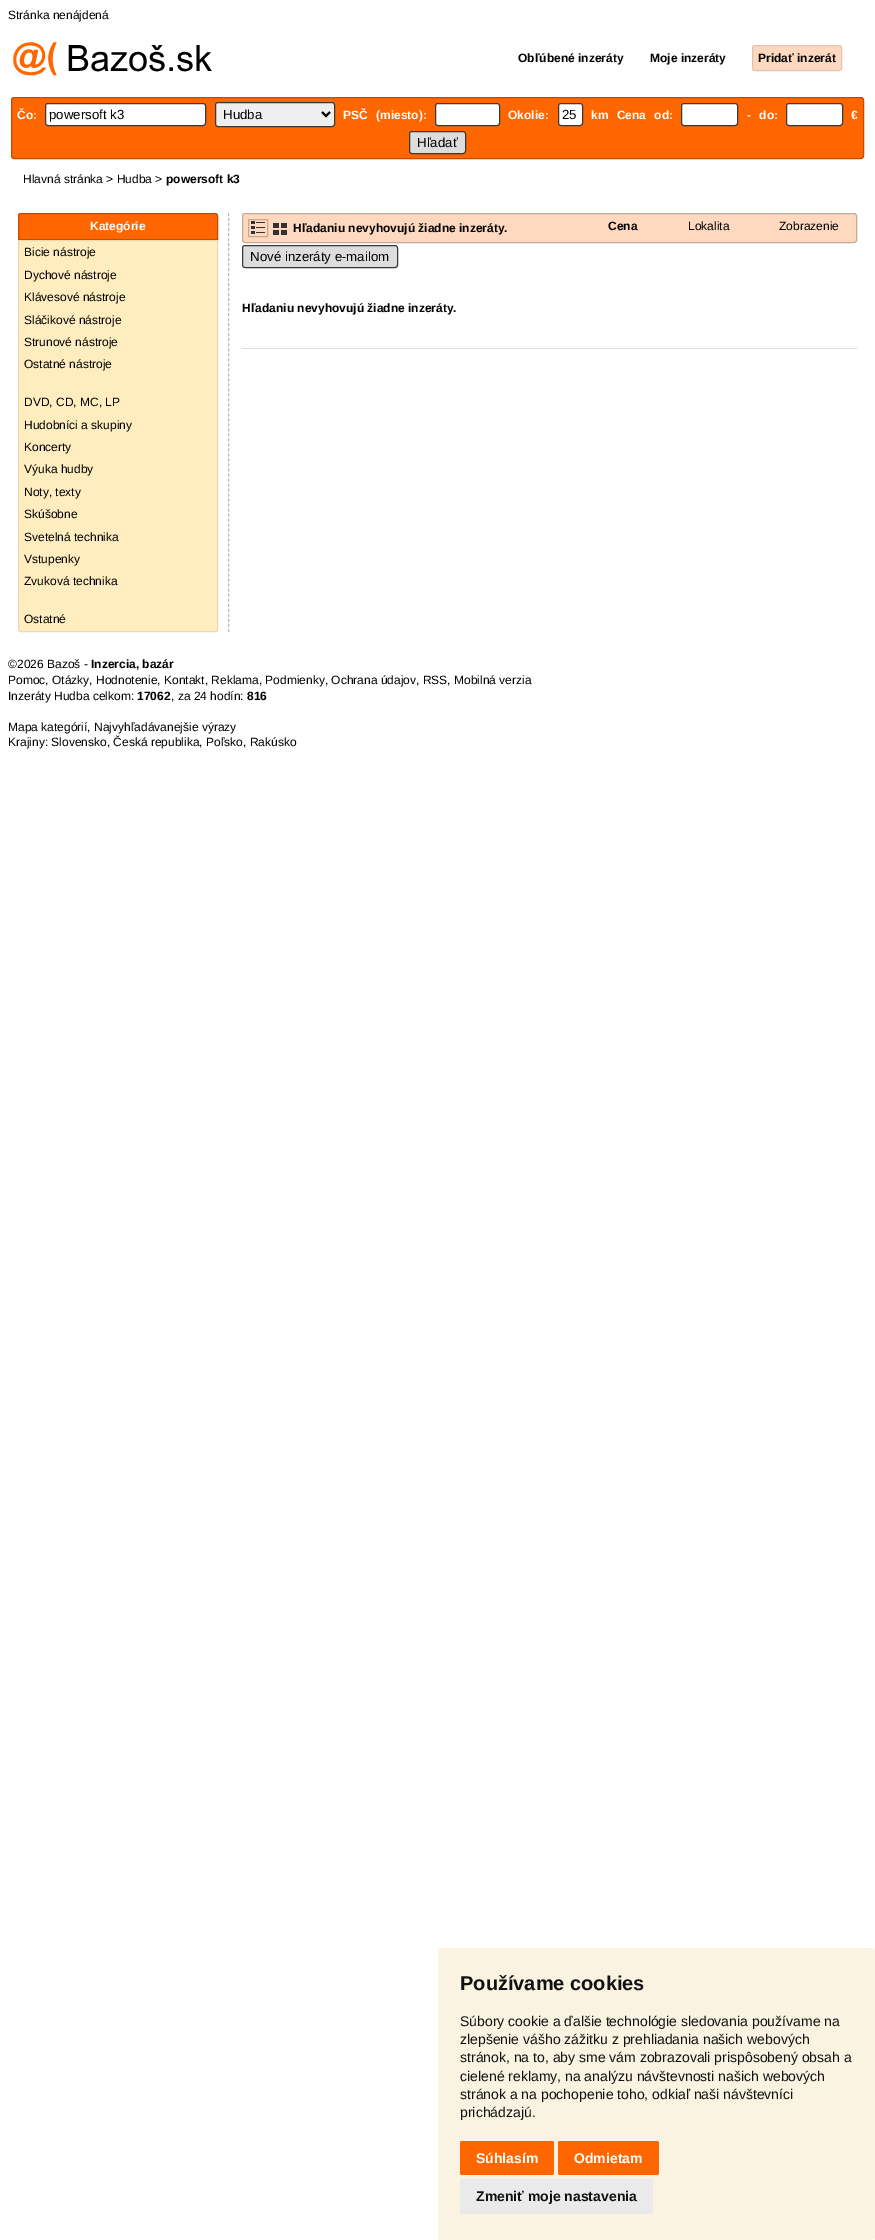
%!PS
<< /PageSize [875 2240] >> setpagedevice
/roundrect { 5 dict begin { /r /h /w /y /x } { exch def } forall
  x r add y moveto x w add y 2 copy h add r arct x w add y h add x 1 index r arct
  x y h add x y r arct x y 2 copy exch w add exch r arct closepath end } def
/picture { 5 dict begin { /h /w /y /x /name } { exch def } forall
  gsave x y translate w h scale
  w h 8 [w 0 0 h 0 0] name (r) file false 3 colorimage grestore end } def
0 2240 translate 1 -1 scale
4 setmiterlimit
1 setgray
0 0 875 2240 rectfill
/LiberationSans-Regular [12 0 0 -12 0 0] selectfont
0 setgray
8 19 moveto (Stránka nenájdená) show
(img1.rgb) 13 42 199 34 picture
/LiberationSans-Bold [12 0 0 -12 0 0] selectfont
518 62 moveto (Obľúbené inzeráty) show
650 62 moveto (Moje inzeráty) show
1 0.851 0.749 setrgbcolor
752.5 45.5 89 25 2.5 roundrect gsave fill grestore
0.894 0.761 0.671 setrgbcolor
stroke
0 setgray
758 62 moveto (Pridať inzerát) show
1 0.4 0 setrgbcolor
11.5 97.5 852 61 2.5 roundrect gsave fill grestore
0.749 0.298 0 setrgbcolor
stroke
1 setgray
17 119 moveto (Čo:) show
45.5 103.5 160 22 2.5 roundrect gsave fill grestore
0.224 setgray
stroke
/LiberationSans-Regular [13.25 0 0 -13.25 0 0] selectfont
0 setgray
49 119 moveto (powersoft k3) show
0.937 setgray
215.5 102.5 119 24 2.5 roundrect gsave fill grestore
0.224 setgray
stroke
0 setgray
2 setlinewidth
newpath 322 112 moveto 326 116 lineto 330 112 lineto stroke
223 119 moveto (Hudba) show
/LiberationSans-Bold [12 0 0 -12 0 0] selectfont
1 setgray
343 119 moveto 5 0 32 (PSČ \(miesto\):) widthshow
435.5 103.5 64 22 2.5 roundrect gsave fill grestore
0.224 setgray
1 setlinewidth
stroke
1 setgray
508 119 moveto (Okolie:) show
558.5 103.5 24 22 2.5 roundrect gsave fill grestore
0.224 setgray
stroke
/LiberationSans-Regular [13.25 0 0 -13.25 0 0] selectfont
0 setgray
562 119 moveto (25) show
/LiberationSans-Bold [12 0 0 -12 0 0] selectfont
1 setgray
591 119 moveto 5 0 32 (km Cena od:) widthshow
681.5 103.5 56 22 2.5 roundrect gsave fill grestore
0.224 setgray
stroke
1 setgray
747 119 moveto 5 0 32 (- do:) widthshow
786.5 103.5 56 22 2.5 roundrect gsave fill grestore
0.224 setgray
stroke
1 setgray
851 119 moveto (€) show
0.867 setgray
409.5 131.5 56 22 2.5 roundrect gsave fill grestore
0.224 setgray
stroke
/LiberationSans-Regular [13.25 0 0 -13.25 0 0] selectfont
0 setgray
417 147 moveto (Hľadať) show
/LiberationSans-Regular [12 0 0 -12 0 0] selectfont
23 183 moveto (Hlavná stránka > Hudba >) show
/LiberationSans-Bold [12 0 0 -12 0 0] selectfont
166 183 moveto (powersoft k3) show
0.733 setgray
[3 2.01] 0 setdash
newpath 228.5 213 moveto 228.5 632 lineto stroke
1 0.4 0 setrgbcolor
newpath 21 213.5 moveto 215 213.5 lineto 216.5 213.5 217.5 214.5 217.5 216 curveto 217.5 239.5 lineto 18.5 239.5 lineto 18.5 216 lineto 18.5 214.5 19.5 213.5 21 213.5 curveto closepath gsave fill grestore
0.749 0.298 0 setrgbcolor
[] 0 setdash
stroke
1 setgray
90 230 moveto (Kategórie) show
1 0.925 0.749 setrgbcolor
newpath 18.5 240.5 moveto 217.5 240.5 lineto 217.5 629 lineto 217.5 630.5 216.5 631.5 215 631.5 curveto 21 631.5 lineto 19.5 631.5 18.5 630.5 18.5 629 curveto closepath gsave fill grestore
0.922 0.851 0.69 setrgbcolor
stroke
/LiberationSans-Regular [12 0 0 -12 0 0] selectfont
0 setgray
24 256 moveto (Bicie nástroje) show
24 279 moveto (Dychové nástroje) show
24 301 moveto (Klávesové nástroje) show
24 324 moveto (Sláčikové nástroje) show
24 346 moveto (Strunové nástroje) show
24 368 moveto (Ostatné nástroje) show
24 406 moveto (DVD, CD, MC, LP) show
24 429 moveto (Hudobníci a skupiny) show
24 451 moveto (Koncerty) show
24 473 moveto (Výuka hudby) show
24 496 moveto (Noty, texty) show
24 518 moveto (Skúšobne) show
24 541 moveto (Svetelná technika) show
24 563 moveto (Vstupenky) show
24 585 moveto (Zvuková technika) show
24 623 moveto (Ostatné) show
1 0.851 0.749 setrgbcolor
242.5 213.5 614 29 2.5 roundrect gsave fill grestore
0.78 0.663 0.584 setrgbcolor
stroke
248.5 219.5 19 17 rectstroke
(img2.rgb) 251 221 14 13 picture
(img3.rgb) 273 223 14 12 picture
/LiberationSans-Bold [12 0 0 -12 0 0] selectfont
0 setgray
293 232 moveto (Hľadaniu nevyhovujú žiadne inzeráty.) show
608 230 moveto (Cena) show
/LiberationSans-Regular [12 0 0 -12 0 0] selectfont
688 230 moveto (Lokalita) show
779 230 moveto (Zobrazenie) show
0.867 setgray
242.5 245.5 155 22 2.5 roundrect gsave fill grestore
0.224 setgray
stroke
/LiberationSans-Regular [13.25 0 0 -13.25 0 0] selectfont
0 setgray
250 261 moveto (Nové inzeráty e-mailom) show
/LiberationSans-Bold [12 0 0 -12 0 0] selectfont
242 312 moveto (Hľadaniu nevyhovujú žiadne inzeráty.) show
0.867 setgray
242 348 615 1 rectfill
/LiberationSans-Regular [12 0 0 -12 0 0] selectfont
0 setgray
8 668 moveto (©2026 Bazoš -) show
/LiberationSans-Bold [12 0 0 -12 0 0] selectfont
91 668 moveto (Inzercia, bazár) show
/LiberationSans-Regular [12 0 0 -12 0 0] selectfont
8 684 moveto (Pomoc, Otázky, Hodnotenie, Kontakt, Reklama, Podmienky, Ochrana údajov, RSS, Mobilná verzia) show
8 700 moveto (Inzeráty Hudba celkom:) show
/LiberationSans-Bold [12 0 0 -12 0 0] selectfont
137 700 moveto (17062) show
/LiberationSans-Regular [12 0 0 -12 0 0] selectfont
171 700 moveto (, za 24 hodín:) show
/LiberationSans-Bold [12 0 0 -12 0 0] selectfont
247 700 moveto (816) show
/LiberationSans-Regular [12 0 0 -12 0 0] selectfont
8 731 moveto (Mapa kategórií, Najvyhľadávanejšie výrazy) show
8 746 moveto (Krajiny: Slovensko, Česká republika, Poľsko, Rakúsko) show
0.984 0.953 0.882 setrgbcolor
438 1948 437 292 3 roundrect fill
/LiberationSans-Bold [20 0 0 -20 0 0] selectfont
0.067 setgray
460 1990 moveto (Používame cookies) show
/LiberationSans-Regular [14 0 0 -14 0 0] selectfont
460 2026 moveto (Súbory cookie a ďalšie technológie sledovania používame na) show
460 2044 moveto (zlepšenie vášho zážitku z prehliadania našich webových) show
460 2062 moveto (stránok, na to, aby sme vám zobrazovali prispôsobený obsah a) show
460 2081 moveto (cielené reklamy, na analýzu návštevnosti našich webových) show
460 2099 moveto (stránok a na pochopenie toho, odkiaľ naši návštevníci) show
460 2117 moveto (prichádzajú.) show
1 0.4 0 setrgbcolor
460 2141 94 34 2 roundrect fill
/LiberationSans-Bold [14 0 0 -14 0 0] selectfont
1 setgray
476 2163 moveto (Súhlasím) show
1 0.4 0 setrgbcolor
558 2141 101 34 2 roundrect fill
1 setgray
574 2163 moveto (Odmietam) show
0.918 setgray
460 2179 193 35 2 roundrect fill
0.067 setgray
476 2201 moveto (Zmeniť moje nastavenia) show
showpage
